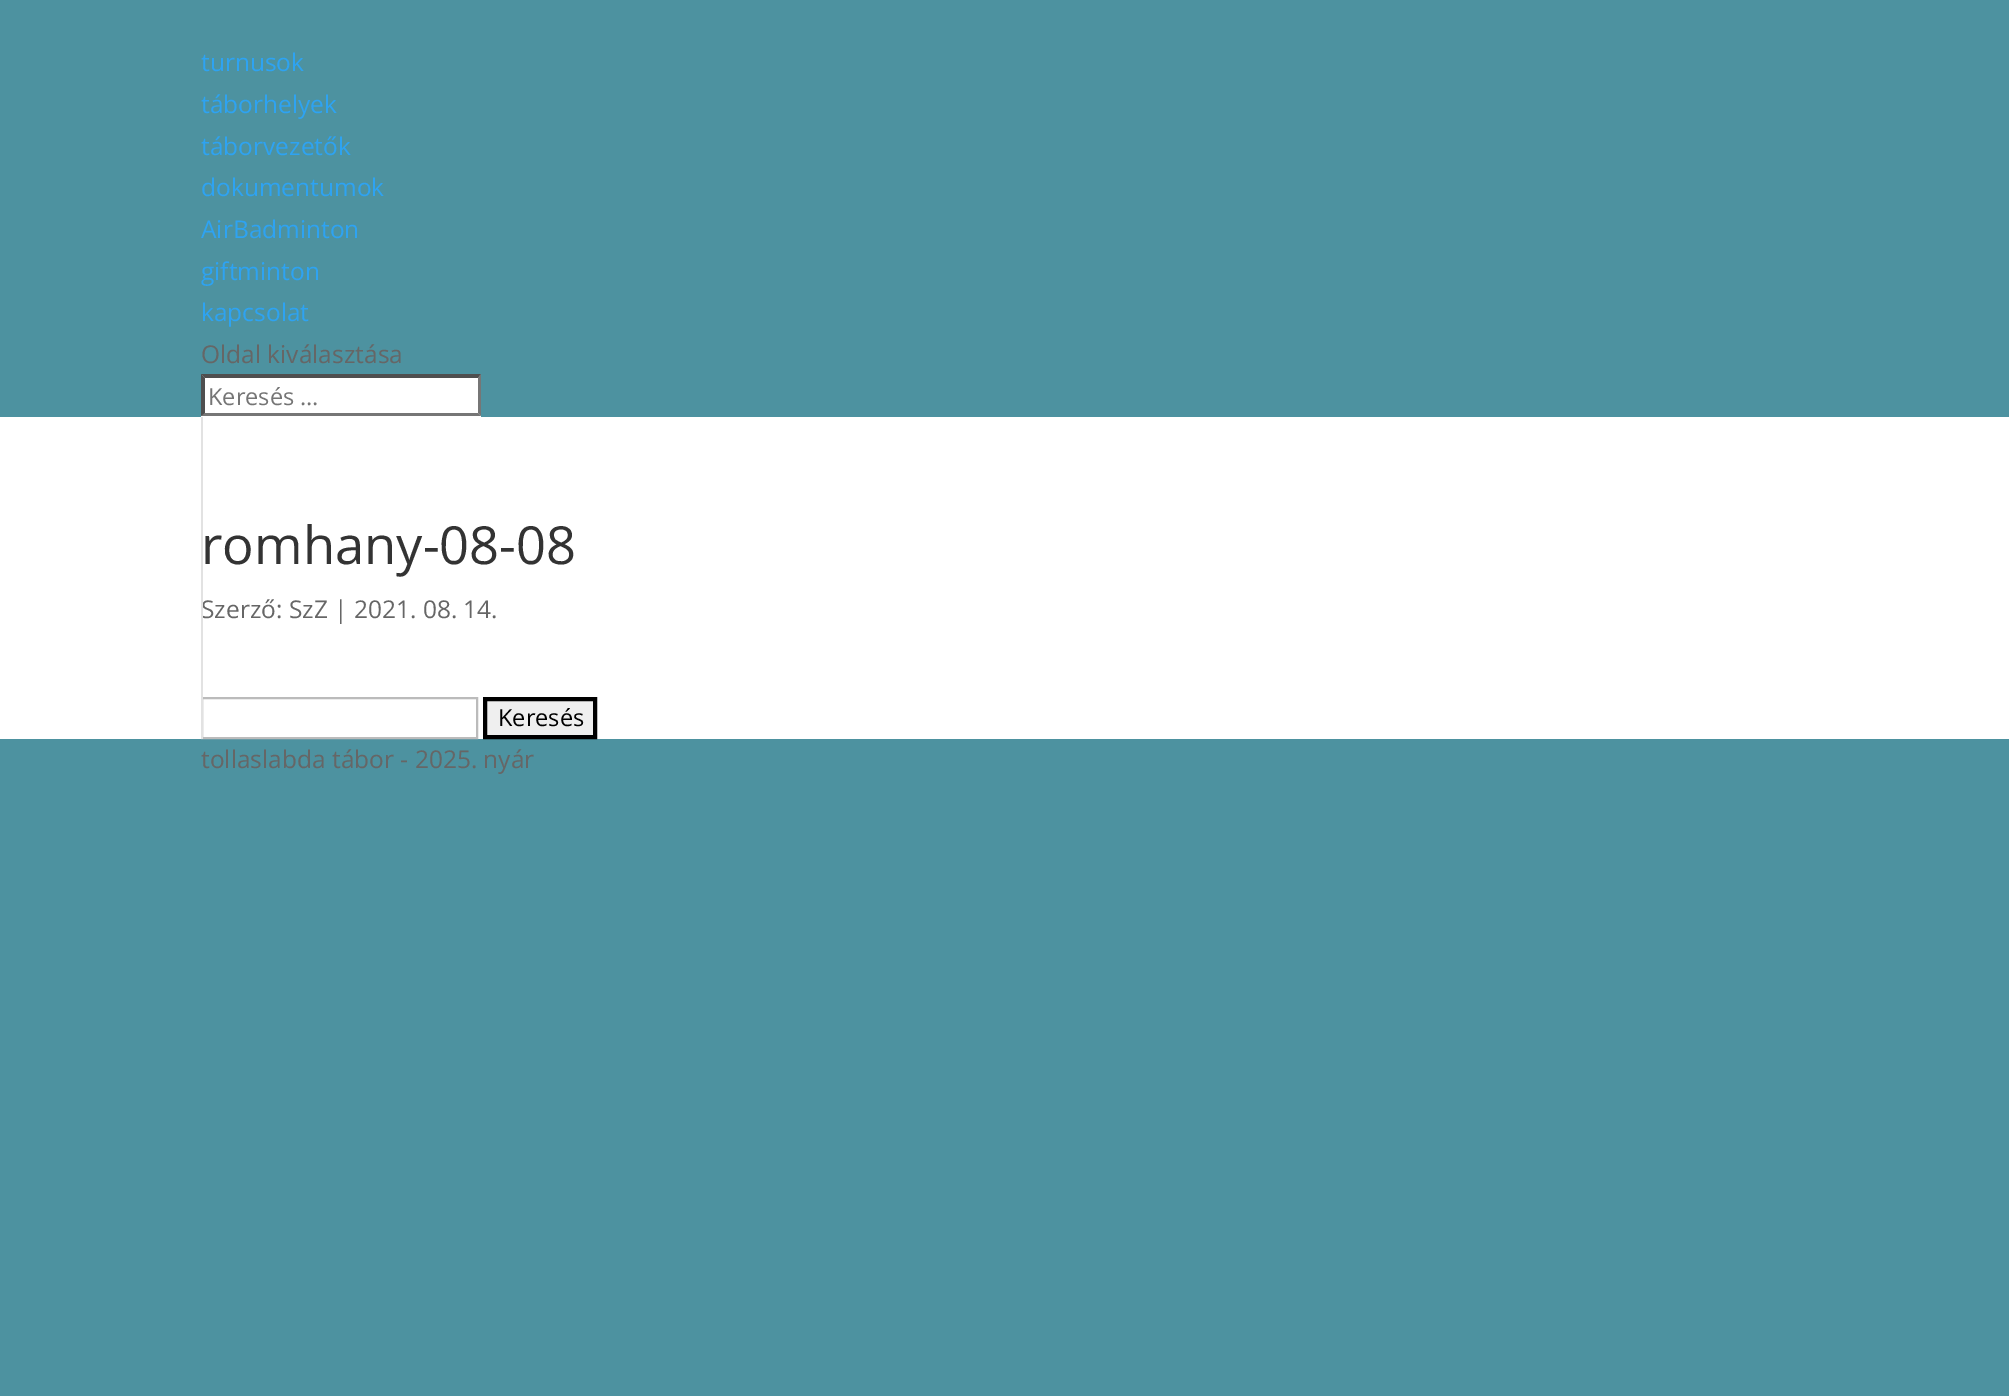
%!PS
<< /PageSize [2009 1396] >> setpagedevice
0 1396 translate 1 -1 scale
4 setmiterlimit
0.302 0.573 0.627 setrgbcolor
0 0 2009 1396 rectfill
/OpenSans-Regular [24.5 0 0 -24.5 0 0] selectfont
0.18 0.639 0.949 setrgbcolor
201 71 moveto (turnusok) show
201 113 moveto (táborhelyek) show
201 155 moveto (táborvezetők) show
201 196 moveto (dokumentumok) show
201 238 moveto (AirBadminton) show
201 280 moveto (giftminton) show
201 321 moveto (kapcsolat) show
0.4 setgray
201 363 moveto (Oldal kiválasztása) show
1 setgray
201 375 280 42 rectfill
0.31 setgray
newpath 201 374 moveto 481 374 lineto 478 378 lineto 205 378 lineto closepath fill
0.463 setgray
newpath 481 374 moveto 481 416 lineto 478 413 lineto 478 378 lineto closepath fill
newpath 481 416 moveto 201 416 lineto 205 413 lineto 478 413 lineto closepath fill
0.31 setgray
newpath 201 416 moveto 201 374 lineto 205 378 lineto 205 413 lineto closepath fill
/OpenSans-Regular [23.5 0 0 -23.5 0 0] selectfont
0.459 setgray
208 405 moveto (Keresés …) show
1 setgray
0 417 2009 322 rectfill
/OpenSans-Regular [24.5 0 0 -24.5 0 0] selectfont
0.4 setgray
201 618 moveto (Szerző: SzZ | 2021. 08. 14.) show
0.733 setgray
2 setlinewidth
202 698 275 40 rectstroke
0.886 setgray
201 417 2 322 rectfill
/OpenSans-Regular [52.5 0 0 -52.5 0 0] selectfont
0.2 setgray
201 564 moveto (romhany-08-08) show
0.937 setgray
newpath 485 699 moveto 595 699 lineto 595 737 lineto 485 737 lineto closepath gsave fill grestore
0 setgray
4 setlinewidth
stroke
/OpenSans-Regular [23.5 0 0 -23.5 0 0] selectfont
498 726 moveto (Keresés) show
/OpenSans-Regular [24.5 0 0 -24.5 0 0] selectfont
0.4 setgray
201 768 moveto (tollaslabda tábor - 2025. nyár) show
showpage
